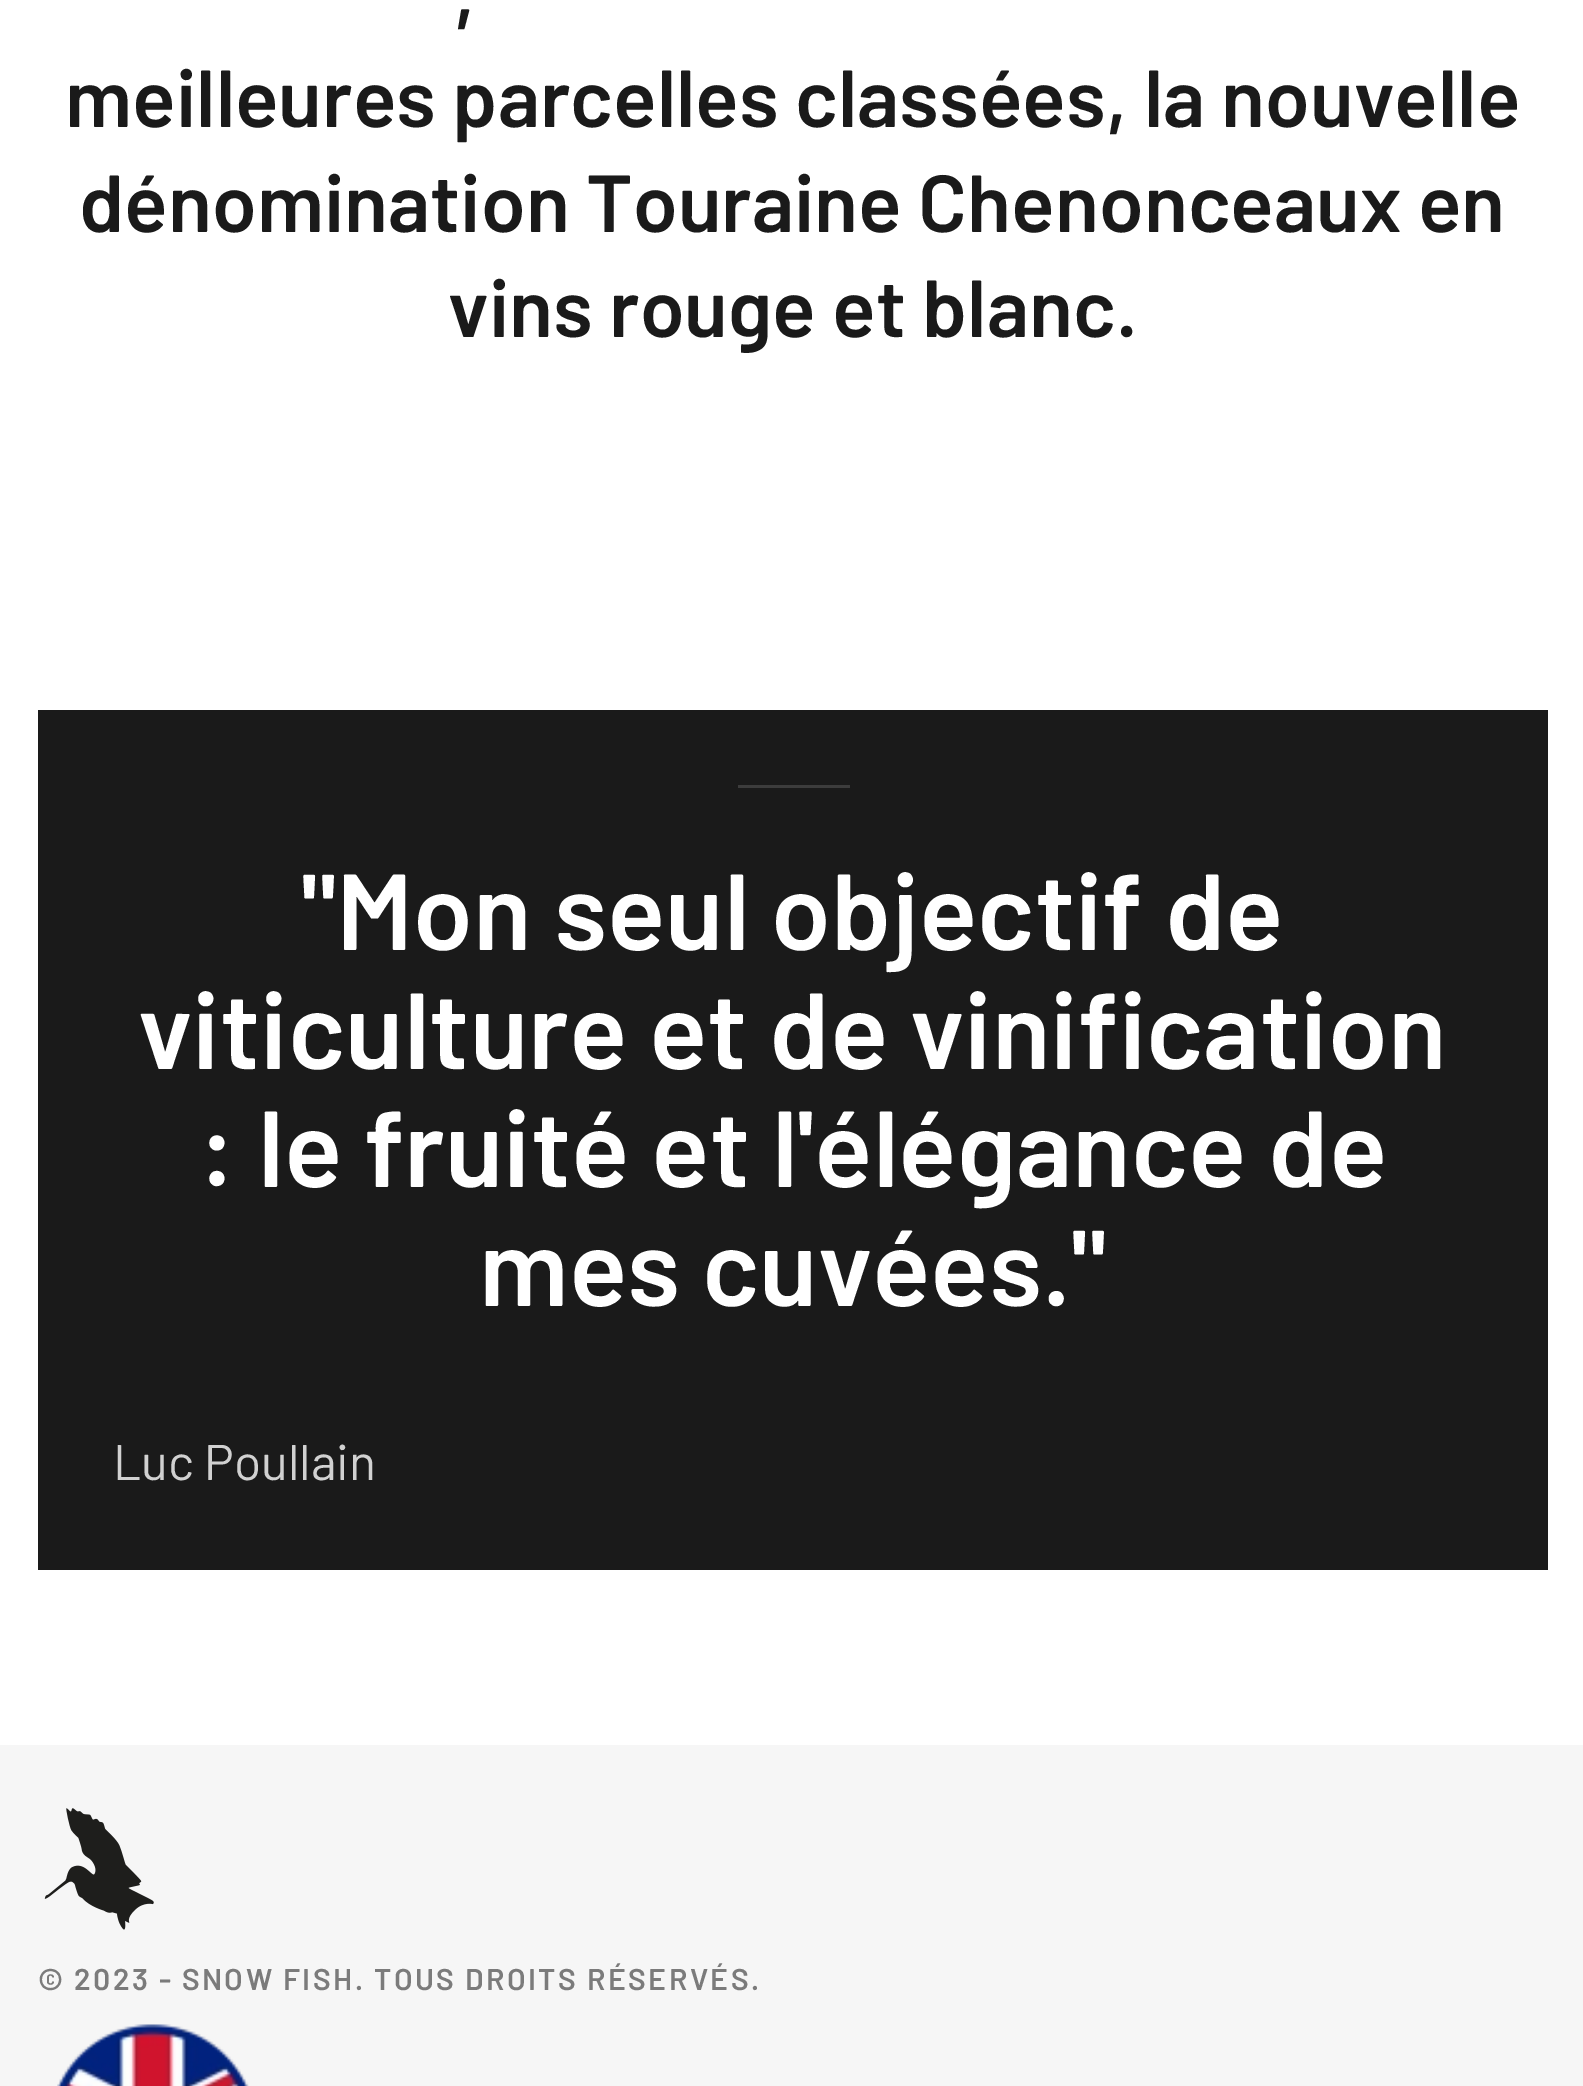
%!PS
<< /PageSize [1583 2086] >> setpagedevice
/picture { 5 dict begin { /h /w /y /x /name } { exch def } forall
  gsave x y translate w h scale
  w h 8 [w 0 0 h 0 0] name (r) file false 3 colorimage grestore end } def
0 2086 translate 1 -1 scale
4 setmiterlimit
1 setgray
0 0 1583 2086 rectfill
/Barlow-SemiBold [80.75 0 0 -80.75 0 0] selectfont
0.102 setgray
454 22 moveto (,) show
65 127 moveto (meilleures parcelles classées, la nouvelle) show
79 232 moveto (dénomination Touraine Chenonceaux en) show
448 337 moveto (vins rouge et blanc.) show
38 710 1510 860 rectfill
0.235 setgray
738 785 112 3 rectfill
/Barlow-SemiBold [108 0 0 -108 0 0] selectfont
1 setgray
301 950 moveto ("Mon seul objectif de) show
138 1069 moveto (viticulture et de vinification) show
198 1187 moveto (: le fruité et l'élégance de) show
479 1306 moveto (mes cuvées.") show
/Barlow-Regular [50 0 0 -50 0 0] selectfont
0.82 setgray
113 1480 moveto (Luc Poullain) show
0.965 setgray
0 1745 1583 341 rectfill
(img1.rgb) 44 1808 110 122 picture
/Barlow-SemiBold [30 0 0 -30 0 0] selectfont
0.482 setgray
38 1990 moveto 2.5 0 (© 2023 - SNOW FISH. TOUS DROITS RÉSERVÉS.) ashow
(img2.rgb) 57 2024 192 62 picture
showpage
